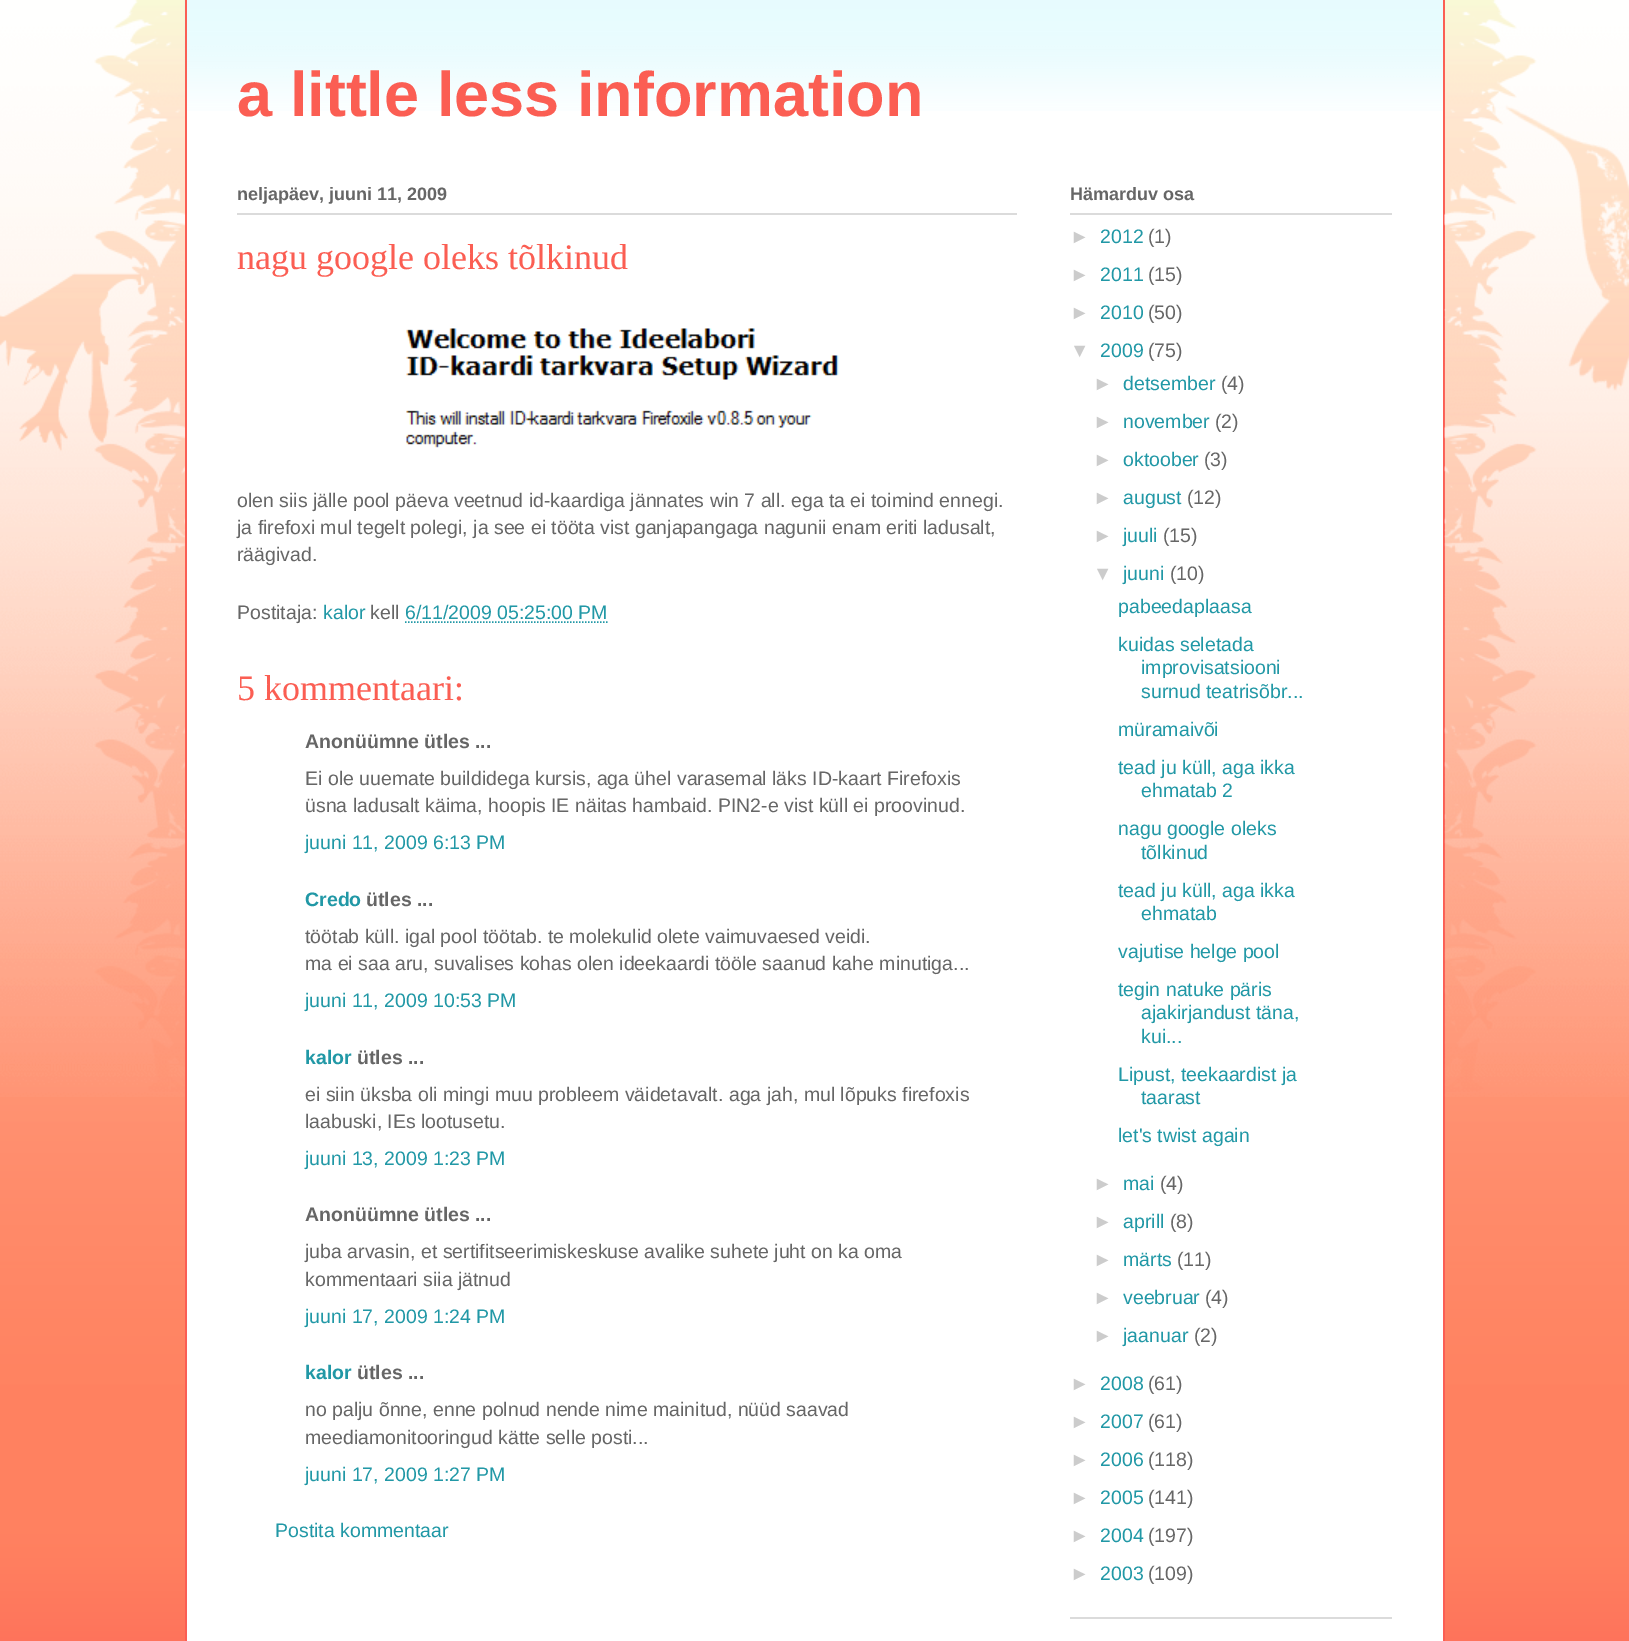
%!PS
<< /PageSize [1629 1641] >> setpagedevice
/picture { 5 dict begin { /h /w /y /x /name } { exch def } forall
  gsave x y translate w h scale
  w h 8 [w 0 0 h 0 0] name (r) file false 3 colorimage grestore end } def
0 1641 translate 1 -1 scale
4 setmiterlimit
1 setgray
0 0 1629 1641 rectfill
(img1.rgb) 0 0 1629 1641 picture
(img2.rgb) 0 0 185 1097 picture
187 0 1256 1641 rectfill
(img3.rgb) 184 0 1259 111 picture
0.984 0.369 0.325 setrgbcolor
1443 0 2 1641 rectfill
185 0 2 1641 rectfill
(img4.rgb) 1444 0 185 1097 picture
/LiberationSans-Bold [63 0 0 -63 0 0] selectfont
237 116 moveto (a little less information) show
0.859 setgray
237 213 780 2 rectfill
/LiberationSans-Bold [18 0 0 -18 0 0] selectfont
0.4 setgray
237 200 moveto (neljapäev, juuni 11, 2009) show
/LiberationSerif-Regular [36 0 0 -36 0 0] selectfont
0.984 0.369 0.325 setrgbcolor
237 269 moveto (nagu google oleks tõlkinud) show
(img5.rgb) 406 328 433 120 picture
/LiberationSans-Regular [19.5 0 0 -19.5 0 0] selectfont
0.4 setgray
237 507 moveto (olen siis jälle pool päeva veetnud id-kaardiga jännates win 7 all. ega ta ei toimind ennegi.) show
237 534 moveto (ja firefoxi mul tegelt polegi, ja see ei tööta vist ganjapangaga nagunii enam eriti ladusalt,) show
237 561 moveto (räägivad.) show
237 619 moveto (Postitaja:) show
0.129 0.596 0.651 setrgbcolor
323 619 moveto (kalor) show
0.4 setgray
370 619 moveto (kell) show
0.129 0.596 0.651 setrgbcolor
405 619 moveto (6/11/2009 05:25:00 PM) show
1.5 setlinewidth
[1.5 1.5] 0 setdash
newpath 405 622 moveto 608 622 lineto stroke
/LiberationSerif-Regular [36 0 0 -36 0 0] selectfont
0.984 0.369 0.325 setrgbcolor
237 700 moveto (5 kommentaari:) show
/LiberationSans-Bold [19.5 0 0 -19.5 0 0] selectfont
0.4 setgray
305 748 moveto (Anonüümne ütles ...) show
/LiberationSans-Regular [19.5 0 0 -19.5 0 0] selectfont
305 785 moveto (Ei ole uuemate buildidega kursis, aga ühel varasemal läks ID-kaart Firefoxis) show
305 812 moveto (üsna ladusalt käima, hoopis IE näitas hambaid. PIN2-e vist küll ei proovinud.) show
0.129 0.596 0.651 setrgbcolor
305 849 moveto (juuni 11, 2009 6:13 PM) show
/LiberationSans-Bold [19.5 0 0 -19.5 0 0] selectfont
305 906 moveto (Credo) show
0.4 setgray
366 906 moveto (ütles ...) show
/LiberationSans-Regular [19.5 0 0 -19.5 0 0] selectfont
305 943 moveto (töötab küll. igal pool töötab. te molekulid olete vaimuvaesed veidi.) show
305 970 moveto (ma ei saa aru, suvalises kohas olen ideekaardi tööle saanud kahe minutiga...) show
0.129 0.596 0.651 setrgbcolor
305 1007 moveto (juuni 11, 2009 10:53 PM) show
/LiberationSans-Bold [19.5 0 0 -19.5 0 0] selectfont
305 1064 moveto (kalor) show
0.4 setgray
357 1064 moveto (ütles ...) show
/LiberationSans-Regular [19.5 0 0 -19.5 0 0] selectfont
305 1101 moveto (ei siin üksba oli mingi muu probleem väidetavalt. aga jah, mul lõpuks firefoxis) show
305 1128 moveto (laabuski, IEs lootusetu.) show
0.129 0.596 0.651 setrgbcolor
305 1165 moveto (juuni 13, 2009 1:23 PM) show
/LiberationSans-Bold [19.5 0 0 -19.5 0 0] selectfont
0.4 setgray
305 1221 moveto (Anonüümne ütles ...) show
/LiberationSans-Regular [19.5 0 0 -19.5 0 0] selectfont
305 1258 moveto (juba arvasin, et sertifitseerimiskeskuse avalike suhete juht on ka oma) show
305 1286 moveto (kommentaari siia jätnud) show
0.129 0.596 0.651 setrgbcolor
305 1323 moveto (juuni 17, 2009 1:24 PM) show
/LiberationSans-Bold [19.5 0 0 -19.5 0 0] selectfont
305 1379 moveto (kalor) show
0.4 setgray
357 1379 moveto (ütles ...) show
/LiberationSans-Regular [19.5 0 0 -19.5 0 0] selectfont
305 1416 moveto (no palju õnne, enne polnud nende nime mainitud, nüüd saavad) show
305 1444 moveto (meediamonitooringud kätte selle posti...) show
0.129 0.596 0.651 setrgbcolor
305 1481 moveto (juuni 17, 2009 1:27 PM) show
275 1537 moveto (Postita kommentaar) show
0.859 setgray
1070 1617 322 2 rectfill
1070 213 322 2 rectfill
/LiberationSans-Bold [18 0 0 -18 0 0] selectfont
0.4 setgray
1070 200 moveto (Hämarduv osa) show
/LiberationSans-Regular [19.5 0 0 -19.5 0 0] selectfont
0.8 setgray
1070 243 moveto (►) show
0.129 0.596 0.651 setrgbcolor
1100 243 moveto (2012) show
0.4 setgray
1148 243 moveto (\(1\)) show
0.8 setgray
1070 281 moveto (►) show
0.129 0.596 0.651 setrgbcolor
1100 281 moveto (2011) show
0.4 setgray
1148 281 moveto (\(15\)) show
0.8 setgray
1070 319 moveto (►) show
0.129 0.596 0.651 setrgbcolor
1100 319 moveto (2010) show
0.4 setgray
1148 319 moveto (\(50\)) show
0.8 setgray
1070 357 moveto (▼) show
0.129 0.596 0.651 setrgbcolor
1100 357 moveto (2009) show
0.4 setgray
1148 357 moveto (\(75\)) show
0.8 setgray
1093 390 moveto (►) show
0.129 0.596 0.651 setrgbcolor
1123 390 moveto (detsember) show
0.4 setgray
1221 390 moveto (\(4\)) show
0.8 setgray
1093 428 moveto (►) show
0.129 0.596 0.651 setrgbcolor
1123 428 moveto (november) show
0.4 setgray
1215 428 moveto (\(2\)) show
0.8 setgray
1093 466 moveto (►) show
0.129 0.596 0.651 setrgbcolor
1123 466 moveto (oktoober) show
0.4 setgray
1204 466 moveto (\(3\)) show
0.8 setgray
1093 504 moveto (►) show
0.129 0.596 0.651 setrgbcolor
1123 504 moveto (august) show
0.4 setgray
1187 504 moveto (\(12\)) show
0.8 setgray
1093 542 moveto (►) show
0.129 0.596 0.651 setrgbcolor
1123 542 moveto (juuli) show
0.4 setgray
1163 542 moveto (\(15\)) show
0.8 setgray
1093 580 moveto (▼) show
0.129 0.596 0.651 setrgbcolor
1123 580 moveto (juuni) show
0.4 setgray
1170 580 moveto (\(10\)) show
0.129 0.596 0.651 setrgbcolor
1118 613 moveto (pabeedaplaasa) show
1118 651 moveto (kuidas seletada) show
1141 674 moveto (improvisatsiooni) show
1141 698 moveto (surnud teatrisõbr...) show
1118 736 moveto (müramaivõi) show
1118 774 moveto (tead ju küll, aga ikka) show
1141 797 moveto (ehmatab 2) show
1118 835 moveto (nagu google oleks) show
1141 859 moveto (tõlkinud) show
1118 897 moveto (tead ju küll, aga ikka) show
1141 920 moveto (ehmatab) show
1118 958 moveto (vajutise helge pool) show
1118 996 moveto (tegin natuke päris) show
1141 1019 moveto (ajakirjandust täna,) show
1141 1043 moveto (kui...) show
1118 1081 moveto (Lipust, teekaardist ja) show
1141 1104 moveto (taarast) show
1118 1142 moveto (let's twist again) show
0.8 setgray
1093 1190 moveto (►) show
0.129 0.596 0.651 setrgbcolor
1123 1190 moveto (mai) show
0.4 setgray
1160 1190 moveto (\(4\)) show
0.8 setgray
1093 1228 moveto (►) show
0.129 0.596 0.651 setrgbcolor
1123 1228 moveto (aprill) show
0.4 setgray
1170 1228 moveto (\(8\)) show
0.8 setgray
1093 1266 moveto (►) show
0.129 0.596 0.651 setrgbcolor
1123 1266 moveto (märts) show
0.4 setgray
1177 1266 moveto (\(11\)) show
0.8 setgray
1093 1304 moveto (►) show
0.129 0.596 0.651 setrgbcolor
1123 1304 moveto (veebruar) show
0.4 setgray
1205 1304 moveto (\(4\)) show
0.8 setgray
1093 1342 moveto (►) show
0.129 0.596 0.651 setrgbcolor
1123 1342 moveto (jaanuar) show
0.4 setgray
1194 1342 moveto (\(2\)) show
0.8 setgray
1070 1390 moveto (►) show
0.129 0.596 0.651 setrgbcolor
1100 1390 moveto (2008) show
0.4 setgray
1148 1390 moveto (\(61\)) show
0.8 setgray
1070 1428 moveto (►) show
0.129 0.596 0.651 setrgbcolor
1100 1428 moveto (2007) show
0.4 setgray
1148 1428 moveto (\(61\)) show
0.8 setgray
1070 1466 moveto (►) show
0.129 0.596 0.651 setrgbcolor
1100 1466 moveto (2006) show
0.4 setgray
1148 1466 moveto (\(118\)) show
0.8 setgray
1070 1504 moveto (►) show
0.129 0.596 0.651 setrgbcolor
1100 1504 moveto (2005) show
0.4 setgray
1148 1504 moveto (\(141\)) show
0.8 setgray
1070 1542 moveto (►) show
0.129 0.596 0.651 setrgbcolor
1100 1542 moveto (2004) show
0.4 setgray
1148 1542 moveto (\(197\)) show
0.8 setgray
1070 1580 moveto (►) show
0.129 0.596 0.651 setrgbcolor
1100 1580 moveto (2003) show
0.4 setgray
1148 1580 moveto (\(109\)) show
showpage
